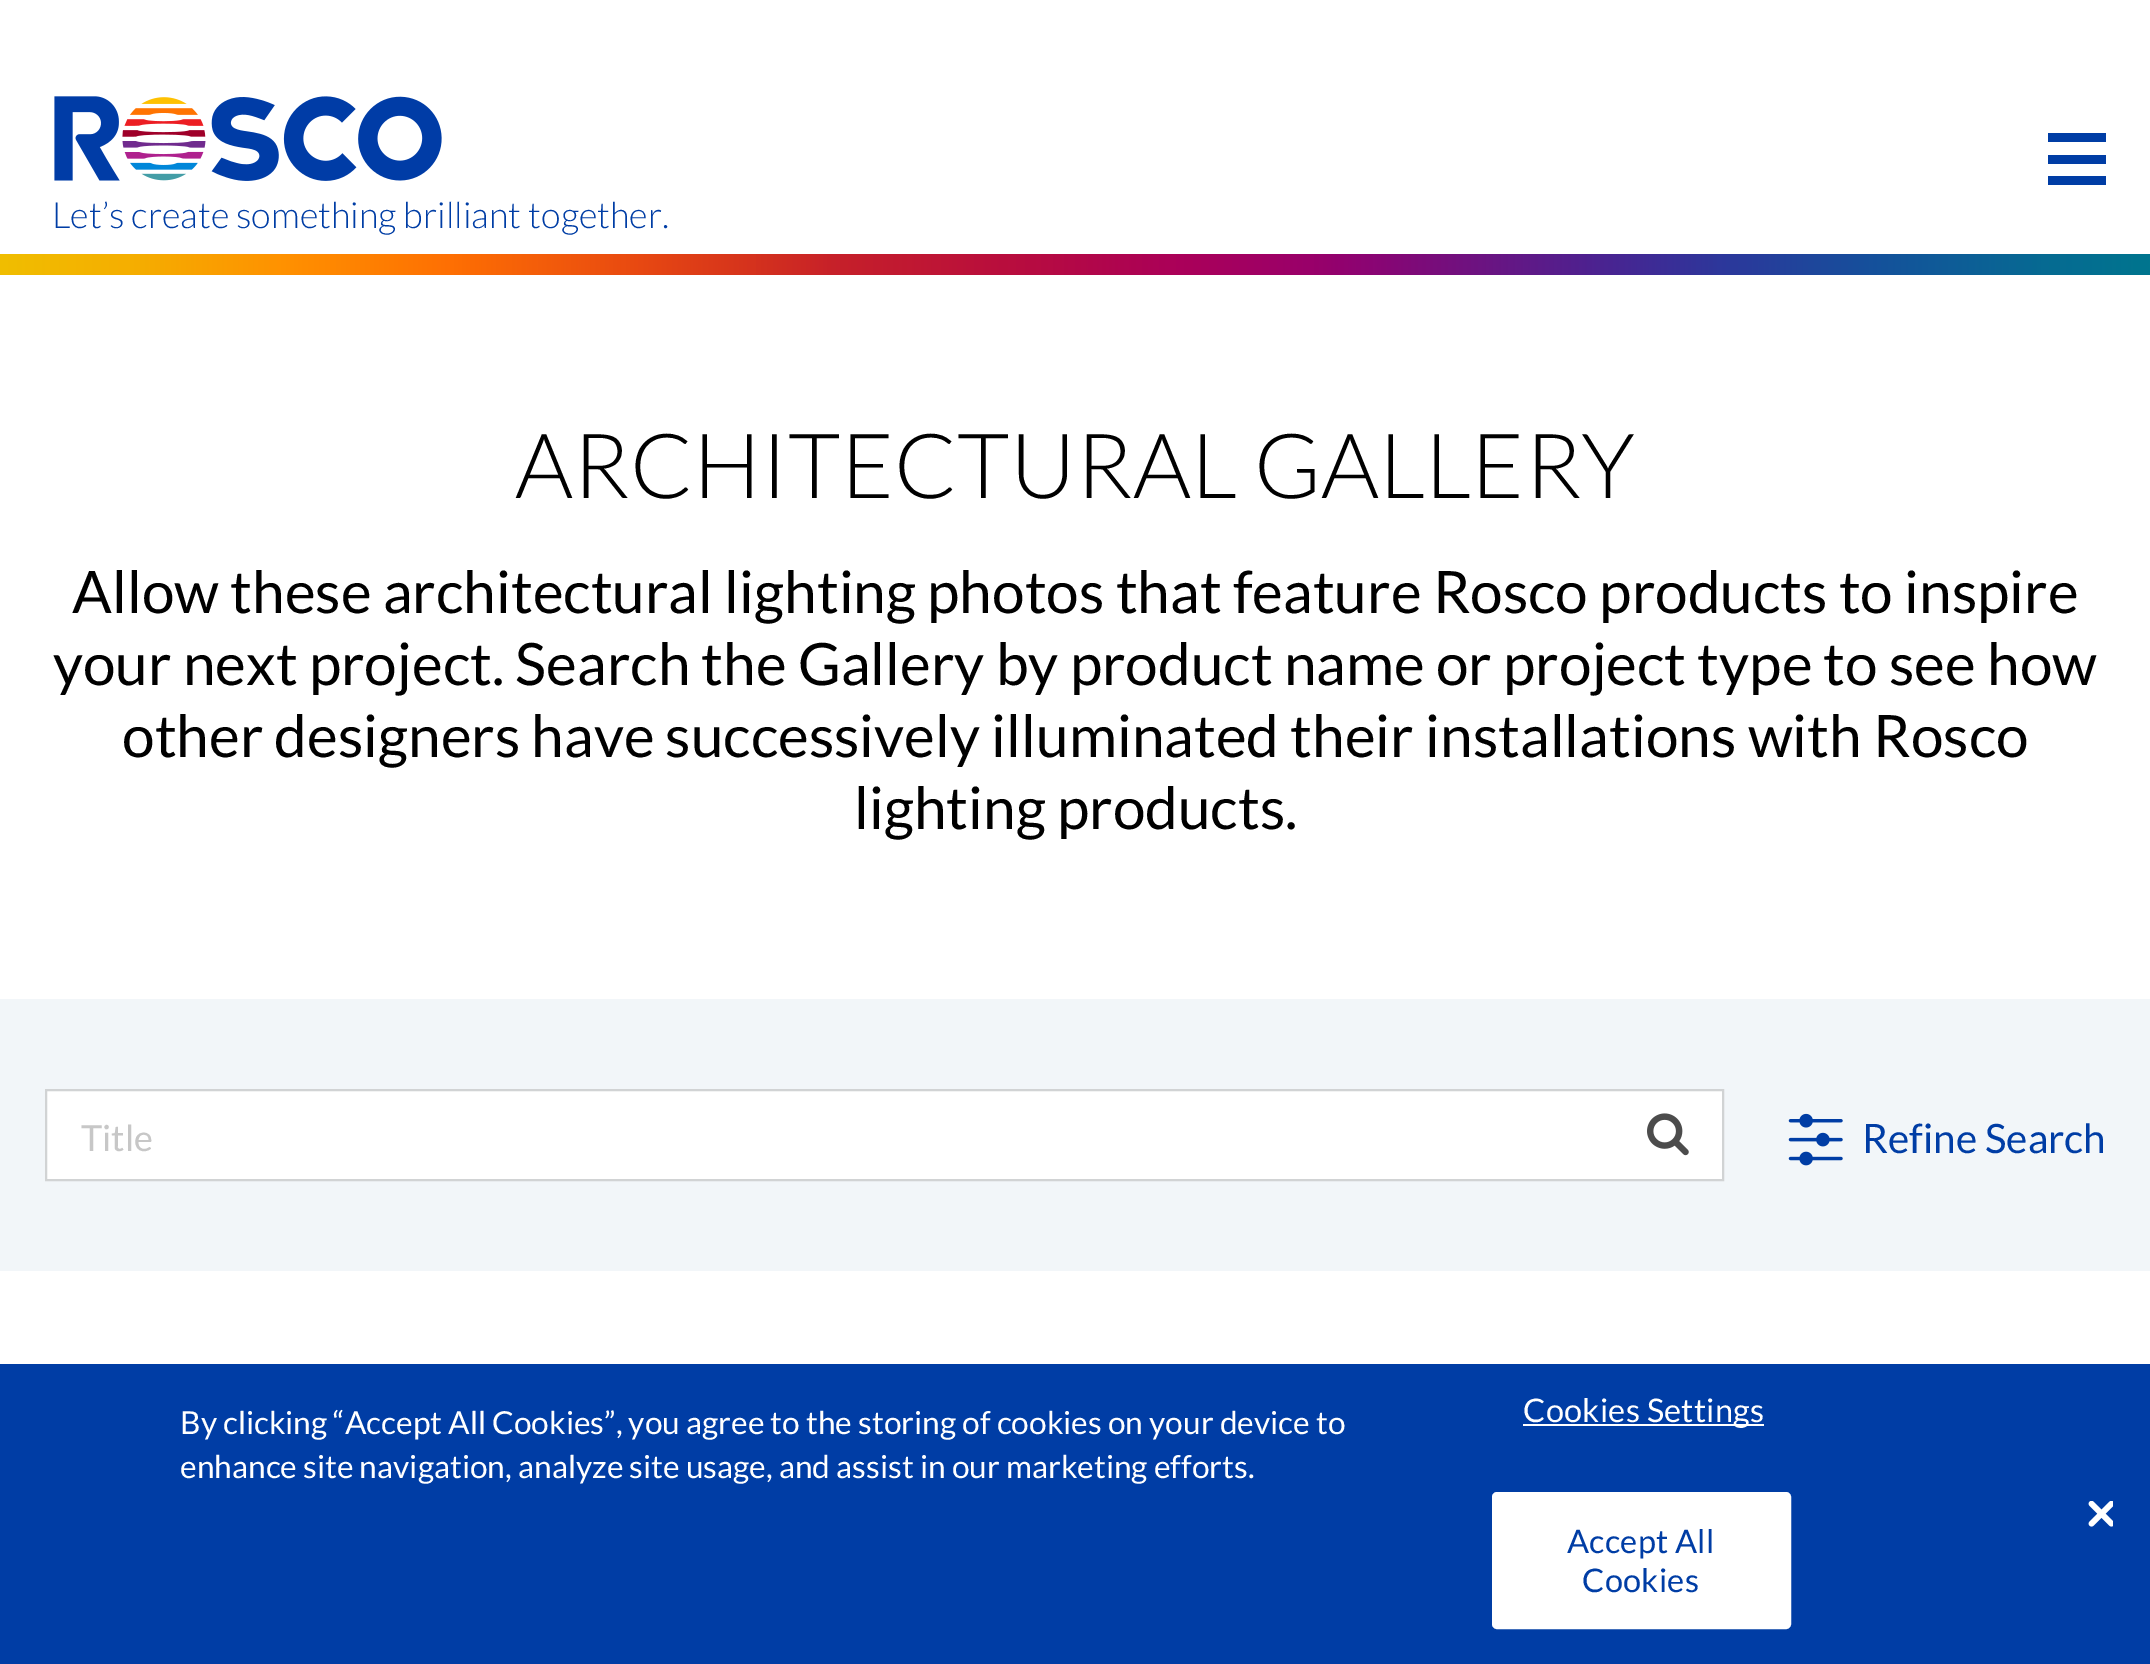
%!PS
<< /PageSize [2150 1664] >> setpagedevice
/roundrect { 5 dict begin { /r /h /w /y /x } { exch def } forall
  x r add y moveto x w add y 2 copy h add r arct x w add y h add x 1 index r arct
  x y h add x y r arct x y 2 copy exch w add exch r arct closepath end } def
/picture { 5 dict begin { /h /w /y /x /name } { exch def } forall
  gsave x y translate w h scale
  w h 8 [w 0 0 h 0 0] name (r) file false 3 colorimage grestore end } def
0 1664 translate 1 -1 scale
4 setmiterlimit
1 setgray
0 0 2150 1664 rectfill
0 0.239 0.647 setrgbcolor
2048 133 58 9 rectfill
2048 155 58 9 rectfill
2048 176 58 9 rectfill
(img1.rgb) 54 96 388 85 picture
/Lato-Light [36 0 0 -36 0 0] selectfont
52 228 moveto (Let’s create something brilliant together.) show
gsave newpath 0 254 moveto 2150 254 lineto 2150 275 lineto 0 275 lineto closepath clip newpath
<< /ShadingType 2 /ColorSpace /DeviceRGB /Coords [0 264 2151 264] /Extend [true true] /Function << /FunctionType 3 /Domain [0 1] /Functions [<< /FunctionType 2 /Domain [0 1] /C0 [0.941 0.745 0] /C1 [0.961 0.686 0] /N 1 >> << /FunctionType 2 /Domain [0 1] /C0 [0.961 0.686 0] /C1 [1 0.573 0] /N 1 >> << /FunctionType 2 /Domain [0 1] /C0 [1 0.573 0] /C1 [0.996 0.435 0.012] /N 1 >> << /FunctionType 2 /Domain [0 1] /C0 [0.996 0.435 0.012] /C1 [0.918 0.298 0.063] /N 1 >> << /FunctionType 2 /Domain [0 1] /C0 [0.918 0.298 0.063] /C1 [0.835 0.196 0.114] /N 1 >> << /FunctionType 2 /Domain [0 1] /C0 [0.835 0.196 0.114] /C1 [0.776 0.125 0.165] /N 1 >> << /FunctionType 2 /Domain [0 1] /C0 [0.776 0.125 0.165] /C1 [0.722 0.051 0.243] /N 1 >> << /FunctionType 2 /Domain [0 1] /C0 [0.722 0.051 0.243] /C1 [0.667 0 0.353] /N 1 >> << /FunctionType 2 /Domain [0 1] /C0 [0.667 0 0.353] /C1 [0.6 0 0.416] /N 1 >> << /FunctionType 2 /Domain [0 1] /C0 [0.6 0 0.416] /C1 [0.537 0.02 0.455] /N 1 >> << /FunctionType 2 /Domain [0 1] /C0 [0.537 0.02 0.455] /C1 [0.302 0.133 0.565] /N 1 >> << /FunctionType 2 /Domain [0 1] /C0 [0.302 0.133 0.565] /C1 [0.176 0.216 0.608] /N 1 >> << /FunctionType 2 /Domain [0 1] /C0 [0.176 0.216 0.608] /C1 [0.082 0.314 0.608] /N 1 >> << /FunctionType 2 /Domain [0 1] /C0 [0.082 0.314 0.608] /C1 [0.024 0.416 0.573] /N 1 >> << /FunctionType 2 /Domain [0 1] /C0 [0.024 0.416 0.573] /C1 [0 0.459 0.557] /N 1 >>] /Bounds [0.06 0.13 0.21 0.29 0.35 0.39 0.47 0.55 0.61 0.64 0.74 0.8 0.87 0.95] /Encode [0 1 0 1 0 1 0 1 0 1 0 1 0 1 0 1 0 1 0 1 0 1 0 1 0 1 0 1 0 1] >> >> shfill grestore
/Lato-Light [90 0 0 -90 0 0] selectfont
0 setgray
515 498 moveto (ARCHITECTURAL GALLERY) show
/Lato-Regular [58.5 0 0 -58.5 0 0] selectfont
72 613 moveto (Allow these architectural lighting photos that feature Rosco products to inspire) show
53 685 moveto (your next project. Search the Gallery by product name or project type to see how) show
122 757 moveto (other designers have successively illuminated their installations with Rosco) show
854 829 moveto (lighting products.) show
0.949 0.965 0.976 setrgbcolor
0 999 2150 272 rectfill
1 setgray
newpath 46 1090 moveto 1723 1090 lineto 1723 1180 lineto 46 1180 lineto closepath gsave fill grestore
0.82 0.827 0.831 setrgbcolor
2 setlinewidth
stroke
/Lato-Regular [36 0 0 -36 0 0] selectfont
0.78 setgray
81 1151 moveto (Title) show
(img2.rgb) 1647 1113 42 43 picture
(img3.rgb) 1788 1113 55 53 picture
/Lato-Regular [40.5 0 0 -40.5 0 0] selectfont
0 0.239 0.647 setrgbcolor
1862 1153 moveto (Refine Search) show
0 1364 2150 300 rectfill
/Lato-Regular [31.7 0 0 -31.7 0 0] selectfont
1 setgray
180 1434 moveto (By clicking “Accept All Cookies”, you agree to the storing of cookies on your device to) show
180 1478 moveto (enhance site navigation, analyze site usage, and assist in our marketing efforts.) show
1523 1424 241 2 rectfill
/Lato-Regular [32.5 0 0 -32.5 0 0] selectfont
1523 1422 moveto 0.3 0 (Cookies Settings) ashow
1493 1493 297 135 4 roundrect gsave fill grestore
stroke
0 0.239 0.647 setrgbcolor
1567 1553 moveto 0.3 0 (Accept All) ashow
1582 1592 moveto 0.3 0 (Cookies) ashow
(img4.rgb) 2088 1501 25 26 picture
showpage
